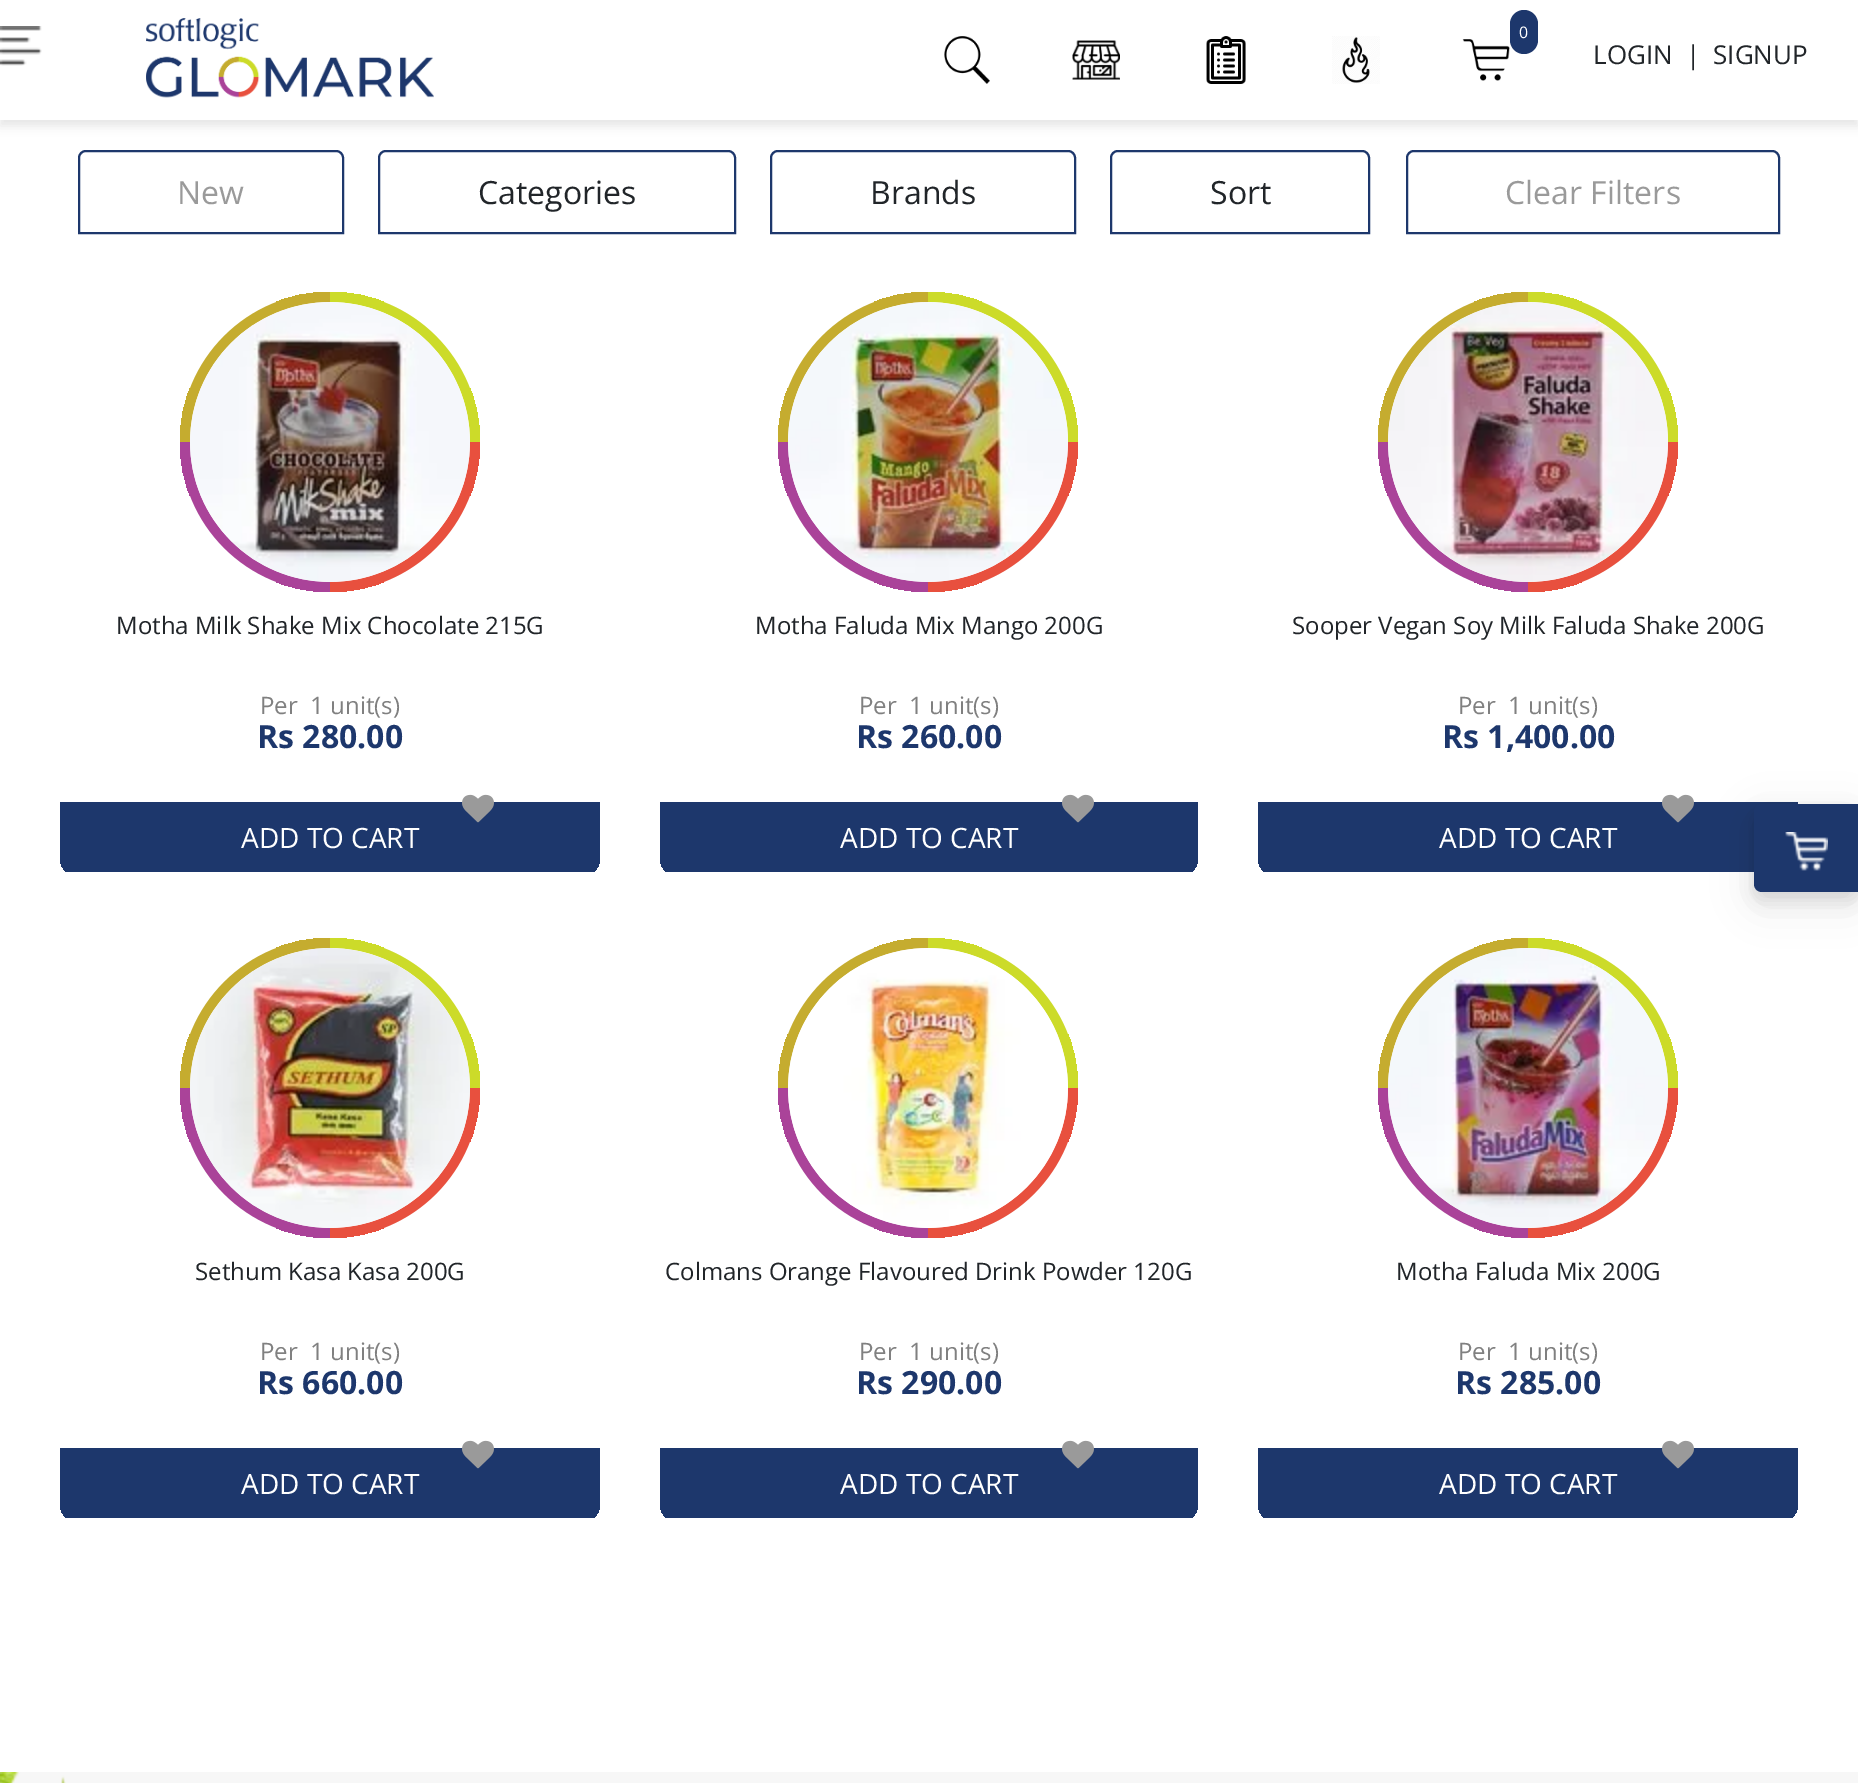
%!PS
<< /PageSize [1858 1783] /PageUsesTransparency true >> setpagedevice
/alpha { dup .setfillconstantalpha .setstrokeconstantalpha } def
/roundrect { 5 dict begin { /r /h /w /y /x } { exch def } forall
  x r add y moveto x w add y 2 copy h add r arct x w add y h add x 1 index r arct
  x y h add x y r arct x y 2 copy exch w add exch r arct closepath end } def
/shadow { 12 dict begin { /a /b /q /h /w /y /x } { exch def } forall gsave /was 0 def
  9 -2 -9 { dup b mul 4 div /e exch def 1 sub .425 mul 2.718 exch exp 1 add a .99 .min exch div /now exch def
    1 1 now sub 1 was sub div sub alpha /was now def
    w h .min e 2 mul add 0 gt { x e sub y e sub w e 2 mul add h e 2 mul add
      q e add b .6 mul add w h .min 2 div e add .min 0 .max roundrect fill } if } for grestore end } def
/picture { 5 dict begin { /h /w /y /x /name } { exch def } forall
  gsave x y translate w h scale
  w h 8 [w 0 0 h 0 0] name (r) file false 3 colorimage grestore end } def
0 .pushpdf14devicefilter
0 1783 translate 1 -1 scale
4 setmiterlimit
0.969 setgray
0 0 1858 1783 rectfill
1 setgray
0 120 1858 1652 rectfill
0 setgray
0 6 1858 120 0 5 0.1 shadow
1 setgray
0 0 1858 120 rectfill
(img1.rgb) 0 26 42 40 picture
(img2.rgb) 146 18 288 80 picture
0.114 0.216 0.424 setrgbcolor
1510 10 28 44 14 roundrect fill
/OpenSans-Regular [16 0 0 -16 0 0] selectfont
1 setgray
1519 38 moveto (0) show
(img3.rgb) 1462 39 48 42 picture
(img4.rgb) 944 36 46 48 picture
(img5.rgb) 1072 40 48 40 picture
(img6.rgb) 1206 36 40 48 picture
(img7.rgb) 1332 36 48 48 picture
/OpenSans-Regular [26 0 0 -26 0 0] selectfont
0.129 0.145 0.161 setrgbcolor
1593 64 moveto (LOGIN) show
1686 64 moveto (|) show
1713 64 moveto (SIGNUP) show
0.114 0.216 0.424 setrgbcolor
2 setlinewidth
newpath 86 151 moveto 336 151 lineto 340 151 343 154 343 158 curveto 343 233 lineto 79 233 lineto 79 158 lineto 79 154 82 151 86 151 curveto closepath stroke
/OpenSans-Regular [32 0 0 -32 0 0] selectfont
0.604 setgray
177 204 moveto (New) show
0.114 0.216 0.424 setrgbcolor
newpath 386 151 moveto 728 151 lineto 732 151 735 154 735 158 curveto 735 233 lineto 379 233 lineto 379 158 lineto 379 154 382 151 386 151 curveto closepath stroke
0.129 0.145 0.161 setrgbcolor
478 204 moveto (Categories) show
0.114 0.216 0.424 setrgbcolor
newpath 778 151 moveto 1068 151 lineto 1072 151 1075 154 1075 158 curveto 1075 233 lineto 771 233 lineto 771 158 lineto 771 154 774 151 778 151 curveto closepath stroke
0.129 0.145 0.161 setrgbcolor
870 204 moveto (Brands) show
0.114 0.216 0.424 setrgbcolor
newpath 1118 151 moveto 1362 151 lineto 1366 151 1369 154 1369 158 curveto 1369 233 lineto 1111 233 lineto 1111 158 lineto 1111 154 1114 151 1118 151 curveto closepath stroke
0.129 0.145 0.161 setrgbcolor
1210 204 moveto (Sort) show
0.114 0.216 0.424 setrgbcolor
newpath 1414 151 moveto 1772 151 lineto 1776 151 1779 154 1779 158 curveto 1779 233 lineto 1407 233 lineto 1407 158 lineto 1407 154 1410 151 1414 151 curveto closepath stroke
0.604 setgray
1505 204 moveto (Clear Filters) show
gsave newpath 330 442 moveto 480 442 lineto 480 525 413 592 330 592 curveto closepath clip newpath
<< /ShadingType 2 /ColorSpace /DeviceRGB /Coords [456 428 354 606] /Extend [true true] /Function << /FunctionType 2 /Domain [0 1] /C0 [0.91 0.314 0.243] /C1 [0.91 0.314 0.243] /N 1 >> >> shfill grestore
gsave newpath 180 442 moveto 330 442 lineto 330 592 lineto 247 592 180 525 180 442 curveto closepath clip newpath
<< /ShadingType 2 /ColorSpace /DeviceRGB /Coords [344 568 166 466] /Extend [true true] /Function << /FunctionType 2 /Domain [0 1] /C0 [0.667 0.263 0.6] /C1 [0.667 0.263 0.6] /N 1 >> >> shfill grestore
gsave newpath 330 292 moveto 413 292 480 359 480 442 curveto 330 442 lineto closepath clip newpath
<< /ShadingType 2 /ColorSpace /DeviceRGB /Coords [316 316 494 418] /Extend [true true] /Function << /FunctionType 2 /Domain [0 1] /C0 [0.8 0.859 0.161] /C1 [0.8 0.859 0.161] /N 1 >> >> shfill grestore
gsave newpath 330 292 moveto 330 442 lineto 180 442 lineto 180 359 247 292 330 292 curveto closepath clip newpath
<< /ShadingType 2 /ColorSpace /DeviceRGB /Coords [204 456 306 278] /Extend [true true] /Function << /FunctionType 2 /Domain [0 1] /C0 [0.773 0.675 0.184] /C1 [0.773 0.675 0.184] /N 1 >> >> shfill grestore
1 setgray
newpath 330 442 140 0 360 arc closepath fill
(img8.rgb) 190 302 280 280 picture
/OpenSans-Regular [24 0 0 -24 0 0] selectfont
0.129 0.145 0.161 setrgbcolor
116 634 moveto (Motha Milk Shake Mix Chocolate 215G) show
0.502 setgray
260 714 moveto (Per  1 unit\(s\)) show
/OpenSans-Bold [32 0 0 -32 0 0] selectfont
0.114 0.216 0.424 setrgbcolor
257 748 moveto (Rs 280.00) show
gsave
60 292 540 586 20 roundrect clip newpath
60 802 540 70 rectfill
grestore
/OpenSans-Regular [28 0 0 -28 0 0] selectfont
1 setgray
241 848 moveto (ADD TO CART) show
(img9.rgb) 462 794 32 29 picture
gsave newpath 928 442 moveto 1078 442 lineto 1078 525 1011 592 928 592 curveto closepath clip newpath
<< /ShadingType 2 /ColorSpace /DeviceRGB /Coords [1054 428 952 606] /Extend [true true] /Function << /FunctionType 2 /Domain [0 1] /C0 [0.91 0.314 0.243] /C1 [0.91 0.314 0.243] /N 1 >> >> shfill grestore
gsave newpath 778 442 moveto 928 442 lineto 928 592 lineto 845 592 778 525 778 442 curveto closepath clip newpath
<< /ShadingType 2 /ColorSpace /DeviceRGB /Coords [942 568 764 466] /Extend [true true] /Function << /FunctionType 2 /Domain [0 1] /C0 [0.667 0.263 0.6] /C1 [0.667 0.263 0.6] /N 1 >> >> shfill grestore
gsave newpath 928 292 moveto 1011 292 1078 359 1078 442 curveto 928 442 lineto closepath clip newpath
<< /ShadingType 2 /ColorSpace /DeviceRGB /Coords [914 316 1092 418] /Extend [true true] /Function << /FunctionType 2 /Domain [0 1] /C0 [0.8 0.859 0.161] /C1 [0.8 0.859 0.161] /N 1 >> >> shfill grestore
gsave newpath 928 292 moveto 928 442 lineto 778 442 lineto 778 359 845 292 928 292 curveto closepath clip newpath
<< /ShadingType 2 /ColorSpace /DeviceRGB /Coords [802 456 904 278] /Extend [true true] /Function << /FunctionType 2 /Domain [0 1] /C0 [0.773 0.675 0.184] /C1 [0.773 0.675 0.184] /N 1 >> >> shfill grestore
newpath 928 442 140 0 360 arc closepath fill
(img10.rgb) 788 302 280 280 picture
/OpenSans-Regular [24 0 0 -24 0 0] selectfont
0.129 0.145 0.161 setrgbcolor
755 634 moveto (Motha Faluda Mix Mango 200G) show
0.502 setgray
859 714 moveto (Per  1 unit\(s\)) show
/OpenSans-Bold [32 0 0 -32 0 0] selectfont
0.114 0.216 0.424 setrgbcolor
856 748 moveto (Rs 260.00) show
gsave
660 292 538 586 20 roundrect clip newpath
660 802 538 70 rectfill
grestore
/OpenSans-Regular [28 0 0 -28 0 0] selectfont
1 setgray
840 848 moveto (ADD TO CART) show
(img9.rgb) 1062 794 32 29 picture
gsave newpath 1528 442 moveto 1678 442 lineto 1678 525 1611 592 1528 592 curveto closepath clip newpath
<< /ShadingType 2 /ColorSpace /DeviceRGB /Coords [1654 428 1552 606] /Extend [true true] /Function << /FunctionType 2 /Domain [0 1] /C0 [0.91 0.314 0.243] /C1 [0.91 0.314 0.243] /N 1 >> >> shfill grestore
gsave newpath 1378 442 moveto 1528 442 lineto 1528 592 lineto 1445 592 1378 525 1378 442 curveto closepath clip newpath
<< /ShadingType 2 /ColorSpace /DeviceRGB /Coords [1542 568 1364 466] /Extend [true true] /Function << /FunctionType 2 /Domain [0 1] /C0 [0.667 0.263 0.6] /C1 [0.667 0.263 0.6] /N 1 >> >> shfill grestore
gsave newpath 1528 292 moveto 1611 292 1678 359 1678 442 curveto 1528 442 lineto closepath clip newpath
<< /ShadingType 2 /ColorSpace /DeviceRGB /Coords [1514 316 1692 418] /Extend [true true] /Function << /FunctionType 2 /Domain [0 1] /C0 [0.8 0.859 0.161] /C1 [0.8 0.859 0.161] /N 1 >> >> shfill grestore
gsave newpath 1528 292 moveto 1528 442 lineto 1378 442 lineto 1378 359 1445 292 1528 292 curveto closepath clip newpath
<< /ShadingType 2 /ColorSpace /DeviceRGB /Coords [1402 456 1504 278] /Extend [true true] /Function << /FunctionType 2 /Domain [0 1] /C0 [0.773 0.675 0.184] /C1 [0.773 0.675 0.184] /N 1 >> >> shfill grestore
newpath 1528 442 140 0 360 arc closepath fill
(img11.rgb) 1388 302 280 280 picture
/OpenSans-Regular [24 0 0 -24 0 0] selectfont
0.129 0.145 0.161 setrgbcolor
1292 634 moveto (Sooper Vegan Soy Milk Faluda Shake 200G) show
0.502 setgray
1458 714 moveto (Per  1 unit\(s\)) show
/OpenSans-Bold [32 0 0 -32 0 0] selectfont
0.114 0.216 0.424 setrgbcolor
1442 748 moveto (Rs 1,400.00) show
gsave
1258 292 540 586 20 roundrect clip newpath
1258 802 540 70 rectfill
grestore
/OpenSans-Regular [28 0 0 -28 0 0] selectfont
1 setgray
1439 848 moveto (ADD TO CART) show
(img9.rgb) 1662 794 32 29 picture
gsave newpath 330 1088 moveto 480 1088 lineto 480 1171 413 1238 330 1238 curveto closepath clip newpath
<< /ShadingType 2 /ColorSpace /DeviceRGB /Coords [456 1074 354 1252] /Extend [true true] /Function << /FunctionType 2 /Domain [0 1] /C0 [0.91 0.314 0.243] /C1 [0.91 0.314 0.243] /N 1 >> >> shfill grestore
gsave newpath 180 1088 moveto 330 1088 lineto 330 1238 lineto 247 1238 180 1171 180 1088 curveto closepath clip newpath
<< /ShadingType 2 /ColorSpace /DeviceRGB /Coords [344 1214 166 1112] /Extend [true true] /Function << /FunctionType 2 /Domain [0 1] /C0 [0.667 0.263 0.6] /C1 [0.667 0.263 0.6] /N 1 >> >> shfill grestore
gsave newpath 330 938 moveto 413 938 480 1005 480 1088 curveto 330 1088 lineto closepath clip newpath
<< /ShadingType 2 /ColorSpace /DeviceRGB /Coords [316 962 494 1064] /Extend [true true] /Function << /FunctionType 2 /Domain [0 1] /C0 [0.8 0.859 0.161] /C1 [0.8 0.859 0.161] /N 1 >> >> shfill grestore
gsave newpath 330 938 moveto 330 1088 lineto 180 1088 lineto 180 1005 247 938 330 938 curveto closepath clip newpath
<< /ShadingType 2 /ColorSpace /DeviceRGB /Coords [204 1102 306 924] /Extend [true true] /Function << /FunctionType 2 /Domain [0 1] /C0 [0.773 0.675 0.184] /C1 [0.773 0.675 0.184] /N 1 >> >> shfill grestore
newpath 330 1088 140 0 360 arc closepath fill
(img12.rgb) 190 948 280 280 picture
/OpenSans-Regular [24 0 0 -24 0 0] selectfont
0.129 0.145 0.161 setrgbcolor
195 1280 moveto (Sethum Kasa Kasa 200G) show
0.502 setgray
260 1360 moveto (Per  1 unit\(s\)) show
/OpenSans-Bold [32 0 0 -32 0 0] selectfont
0.114 0.216 0.424 setrgbcolor
257 1394 moveto (Rs 660.00) show
gsave
60 938 540 586 20 roundrect clip newpath
60 1448 540 70 rectfill
grestore
/OpenSans-Regular [28 0 0 -28 0 0] selectfont
1 setgray
241 1494 moveto (ADD TO CART) show
(img9.rgb) 462 1440 32 29 picture
gsave newpath 928 1088 moveto 1078 1088 lineto 1078 1171 1011 1238 928 1238 curveto closepath clip newpath
<< /ShadingType 2 /ColorSpace /DeviceRGB /Coords [1054 1074 952 1252] /Extend [true true] /Function << /FunctionType 2 /Domain [0 1] /C0 [0.91 0.314 0.243] /C1 [0.91 0.314 0.243] /N 1 >> >> shfill grestore
gsave newpath 778 1088 moveto 928 1088 lineto 928 1238 lineto 845 1238 778 1171 778 1088 curveto closepath clip newpath
<< /ShadingType 2 /ColorSpace /DeviceRGB /Coords [942 1214 764 1112] /Extend [true true] /Function << /FunctionType 2 /Domain [0 1] /C0 [0.667 0.263 0.6] /C1 [0.667 0.263 0.6] /N 1 >> >> shfill grestore
gsave newpath 928 938 moveto 1011 938 1078 1005 1078 1088 curveto 928 1088 lineto closepath clip newpath
<< /ShadingType 2 /ColorSpace /DeviceRGB /Coords [914 962 1092 1064] /Extend [true true] /Function << /FunctionType 2 /Domain [0 1] /C0 [0.8 0.859 0.161] /C1 [0.8 0.859 0.161] /N 1 >> >> shfill grestore
gsave newpath 928 938 moveto 928 1088 lineto 778 1088 lineto 778 1005 845 938 928 938 curveto closepath clip newpath
<< /ShadingType 2 /ColorSpace /DeviceRGB /Coords [802 1102 904 924] /Extend [true true] /Function << /FunctionType 2 /Domain [0 1] /C0 [0.773 0.675 0.184] /C1 [0.773 0.675 0.184] /N 1 >> >> shfill grestore
newpath 928 1088 140 0 360 arc closepath fill
(img13.rgb) 788 948 280 280 picture
/OpenSans-Regular [24 0 0 -24 0 0] selectfont
0.129 0.145 0.161 setrgbcolor
665 1280 moveto (Colmans Orange Flavoured Drink Powder 120G) show
0.502 setgray
859 1360 moveto (Per  1 unit\(s\)) show
/OpenSans-Bold [32 0 0 -32 0 0] selectfont
0.114 0.216 0.424 setrgbcolor
856 1394 moveto (Rs 290.00) show
gsave
660 938 538 586 20 roundrect clip newpath
660 1448 538 70 rectfill
grestore
/OpenSans-Regular [28 0 0 -28 0 0] selectfont
1 setgray
840 1494 moveto (ADD TO CART) show
(img9.rgb) 1062 1440 32 29 picture
gsave newpath 1528 1088 moveto 1678 1088 lineto 1678 1171 1611 1238 1528 1238 curveto closepath clip newpath
<< /ShadingType 2 /ColorSpace /DeviceRGB /Coords [1654 1074 1552 1252] /Extend [true true] /Function << /FunctionType 2 /Domain [0 1] /C0 [0.91 0.314 0.243] /C1 [0.91 0.314 0.243] /N 1 >> >> shfill grestore
gsave newpath 1378 1088 moveto 1528 1088 lineto 1528 1238 lineto 1445 1238 1378 1171 1378 1088 curveto closepath clip newpath
<< /ShadingType 2 /ColorSpace /DeviceRGB /Coords [1542 1214 1364 1112] /Extend [true true] /Function << /FunctionType 2 /Domain [0 1] /C0 [0.667 0.263 0.6] /C1 [0.667 0.263 0.6] /N 1 >> >> shfill grestore
gsave newpath 1528 938 moveto 1611 938 1678 1005 1678 1088 curveto 1528 1088 lineto closepath clip newpath
<< /ShadingType 2 /ColorSpace /DeviceRGB /Coords [1514 962 1692 1064] /Extend [true true] /Function << /FunctionType 2 /Domain [0 1] /C0 [0.8 0.859 0.161] /C1 [0.8 0.859 0.161] /N 1 >> >> shfill grestore
gsave newpath 1528 938 moveto 1528 1088 lineto 1378 1088 lineto 1378 1005 1445 938 1528 938 curveto closepath clip newpath
<< /ShadingType 2 /ColorSpace /DeviceRGB /Coords [1402 1102 1504 924] /Extend [true true] /Function << /FunctionType 2 /Domain [0 1] /C0 [0.773 0.675 0.184] /C1 [0.773 0.675 0.184] /N 1 >> >> shfill grestore
newpath 1528 1088 140 0 360 arc closepath fill
(img14.rgb) 1388 948 280 280 picture
/OpenSans-Regular [24 0 0 -24 0 0] selectfont
0.129 0.145 0.161 setrgbcolor
1396 1280 moveto (Motha Faluda Mix 200G) show
0.502 setgray
1458 1360 moveto (Per  1 unit\(s\)) show
/OpenSans-Bold [32 0 0 -32 0 0] selectfont
0.114 0.216 0.424 setrgbcolor
1455 1394 moveto (Rs 285.00) show
gsave
1258 938 540 586 20 roundrect clip newpath
1258 1448 540 70 rectfill
grestore
/OpenSans-Regular [28 0 0 -28 0 0] selectfont
1 setgray
1439 1494 moveto (ADD TO CART) show
(img9.rgb) 1662 1440 32 29 picture
0 setgray
1754 816 104 88 8 20 0.1 shadow
1754 812 104 88 8 8 0.1 shadow
0.114 0.216 0.424 setrgbcolor
newpath 1762 804 moveto 1858 804 lineto 1858 892 lineto 1762 892 lineto 1757.5 892 1754 888.5 1754 884 curveto 1754 812 lineto 1754 807.5 1757.5 804 1762 804 curveto closepath fill
(img15.rgb) 1785 832 43 39 picture
(img16.rgb) 0 1772 66 11 picture
.poppdf14devicefilter showpage
